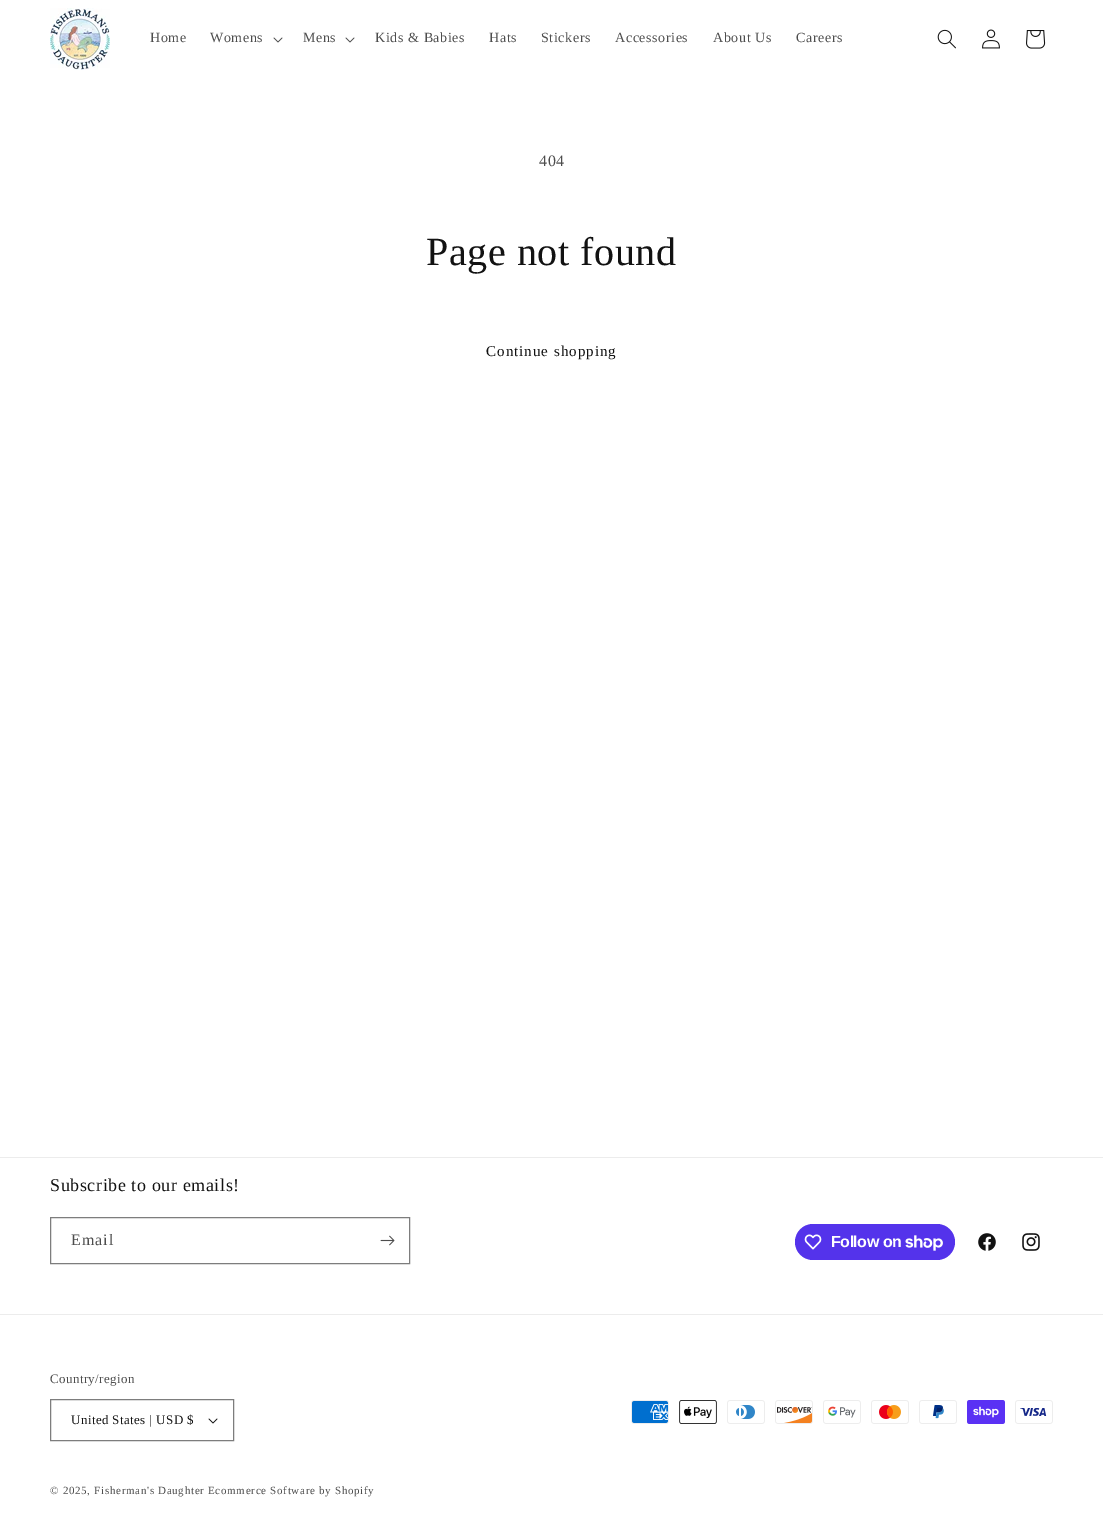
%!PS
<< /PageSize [1103 1516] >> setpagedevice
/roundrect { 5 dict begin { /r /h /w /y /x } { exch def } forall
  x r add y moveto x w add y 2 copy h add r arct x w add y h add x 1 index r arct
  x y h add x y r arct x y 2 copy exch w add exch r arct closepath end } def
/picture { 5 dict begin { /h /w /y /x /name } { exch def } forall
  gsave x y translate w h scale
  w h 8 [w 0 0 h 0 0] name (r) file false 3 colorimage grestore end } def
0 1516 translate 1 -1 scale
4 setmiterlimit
1 setgray
0 0 1103 1516 rectfill
(img1.rgb) 50 8 60 62 picture
/LiberationSerif-Regular [14 0 0 -14 0 0] selectfont
0.302 setgray
150 42 moveto 0.6 0 (Home) ashow
210 42 moveto 0.6 0 (Womens) ashow
(img2.rgb) 273 37 10 6 picture
303 42 moveto 0.6 0 (Mens) ashow
(img2.rgb) 345 37 10 6 picture
375 42 moveto 0.6 0 (Kids & Babies) ashow
489 42 moveto 0.6 0 (Hats) ashow
541 42 moveto 0.6 0 (Stickers) ashow
615 42 moveto 0.6 0 (Accessories) ashow
713 42 moveto 0.6 0 (About Us) ashow
796 42 moveto 0.6 0 (Careers) ashow
(img3.rgb) 937 29 19 20 picture
(img4.rgb) 982 29 18 20 picture
(img5.rgb) 1026 30 20 19 picture
/LiberationSerif-Regular [16 0 0 -16 0 0] selectfont
539 166 moveto 0.6 0 (404) ashow
/LiberationSerif-Regular [40 0 0 -40 0 0] selectfont
0.071 setgray
426 265 moveto 0.6 0 (Page not found) ashow
/LiberationSerif-Regular [15 0 0 -15 0 0] selectfont
486 356 moveto 1 0 (Continue shopping) ashow
0.925 setgray
0 1157 1103 1 rectfill
/LiberationSerif-Regular [18 0 0 -18 0 0] selectfont
0.071 setgray
50 1191 moveto 0.6 0 (Subscribe to our emails!) ashow
0.49 setgray
50.5 1217.5 359 46 rectstroke
/LiberationSerif-Regular [16 0 0 -16 0 0] selectfont
0.302 setgray
71 1245 moveto 1 0 (Email) ashow
(img6.rgb) 380 1235 15 11 picture
0.329 0.2 0.922 setrgbcolor
795 1224 160 36 18 roundrect fill
(img7.rgb) 804 1234 18 16 picture
/LiberationSans-Bold [16 0 0 -16 0 0] selectfont
1 setgray
831 1247 moveto -0.5 0 (Follow on) ashow
(img8.rgb) 905 1235 38 16 picture
(img9.rgb) 978 1233 18 18 picture
(img10.rgb) 1022 1233 18 18 picture
0.925 setgray
0 1314 1103 1 rectfill
/LiberationSerif-Regular [13 0 0 -13 0 0] selectfont
0.302 setgray
50 1383 moveto 0.4 0 (Country/region) ashow
(img11.rgb) 208 1418 10 6 picture
0.49 setgray
50.5 1399.5 183 41 rectstroke
0.071 setgray
71 1424 moveto 0.4 0 (United States | USD $) ashow
(img12.rgb) 631 1400 38 24 picture
(img13.rgb) 679 1400 38 24 picture
(img14.rgb) 727 1400 38 24 picture
(img15.rgb) 775 1400 38 24 picture
(img16.rgb) 823 1400 38 24 picture
(img17.rgb) 871 1400 38 24 picture
(img18.rgb) 919 1400 38 24 picture
(img19.rgb) 967 1400 38 24 picture
(img20.rgb) 1015 1400 38 24 picture
/LiberationSerif-Regular [11 0 0 -11 0 0] selectfont
0.302 setgray
50 1494 moveto 0.7 0 (© 2025, Fisherman's Daughter Ecommerce Software by Shopify) ashow
showpage
